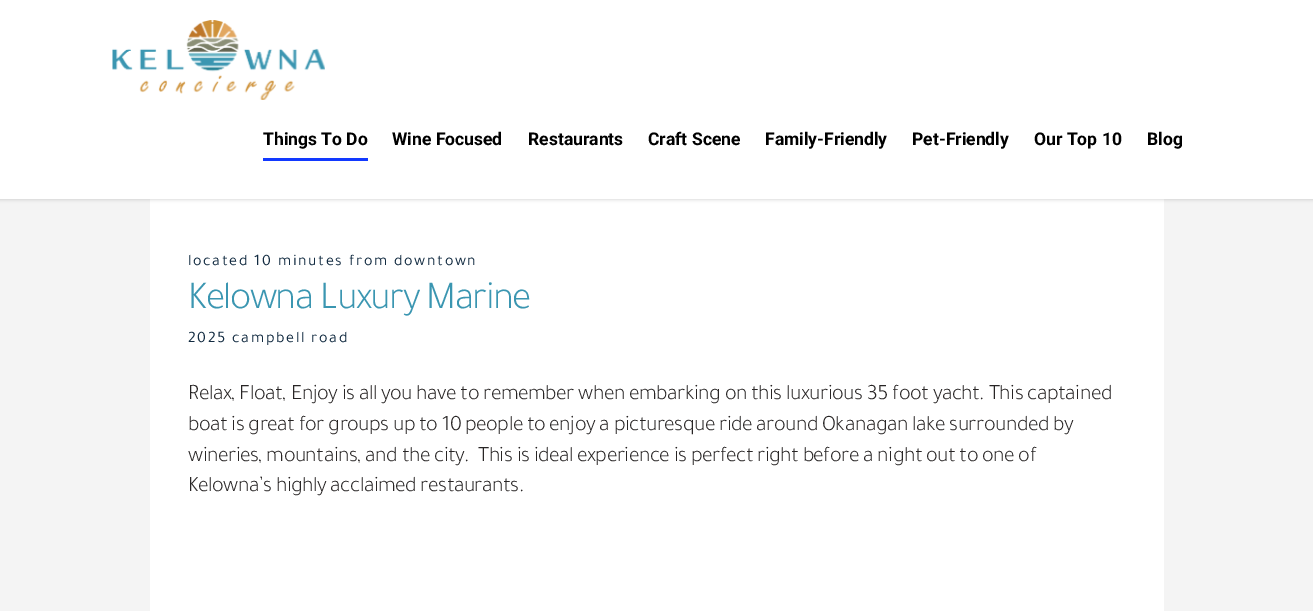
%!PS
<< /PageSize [1313 611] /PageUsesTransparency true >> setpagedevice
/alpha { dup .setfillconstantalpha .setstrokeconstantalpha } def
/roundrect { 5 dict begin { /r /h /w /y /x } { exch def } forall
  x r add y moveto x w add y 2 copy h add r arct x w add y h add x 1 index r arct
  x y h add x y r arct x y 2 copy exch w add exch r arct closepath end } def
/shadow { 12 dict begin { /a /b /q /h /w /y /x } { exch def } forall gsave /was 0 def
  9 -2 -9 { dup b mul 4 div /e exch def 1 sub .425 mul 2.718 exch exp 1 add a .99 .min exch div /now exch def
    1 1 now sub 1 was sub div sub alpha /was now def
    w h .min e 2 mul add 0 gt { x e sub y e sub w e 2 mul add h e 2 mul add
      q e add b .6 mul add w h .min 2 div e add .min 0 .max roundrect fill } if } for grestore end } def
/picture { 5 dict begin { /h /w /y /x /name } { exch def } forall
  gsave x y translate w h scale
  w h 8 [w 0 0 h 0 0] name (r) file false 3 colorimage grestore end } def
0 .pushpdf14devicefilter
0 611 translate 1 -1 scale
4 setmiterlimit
0.957 setgray
0 0 1313 611 rectfill
1 setgray
150 199 1014 412 rectfill
0 setgray
0 0 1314 199 0 2 0.22 shadow
1 setgray
0 0 1313 199 rectfill
(img1.rgb) 112 20 213 80 picture
/Roboto-Bold [17.5 0 0 -17.5 0 0] selectfont
0 setgray
263 145 moveto (Things To Do) show
0.071 0.224 1 setrgbcolor
263 158 105 3 rectfill
0 setgray
392 145 moveto (Wine Focused) show
528 145 moveto (Restaurants) show
648 145 moveto (Craft Scene) show
765 145 moveto (Family-Friendly) show
912 145 moveto (Pet-Friendly) show
1034 145 moveto (Our Top 10) show
1147 145 moveto (Blog) show
/Tajawal-Regular [16 0 0 -16 0 0] selectfont
0.071 0.169 0.255 setrgbcolor
188 265 moveto 1.6 0 (located 10 minutes from downtown) ashow
/Tajawal-Light [40 0 0 -40 0 0] selectfont
0.231 0.588 0.694 setrgbcolor
188 308 moveto -1.5 0 (Kelowna Luxury Marine) ashow
/Tajawal-Regular [16 0 0 -16 0 0] selectfont
0.071 0.169 0.255 setrgbcolor
188 342 moveto 1.6 0 (2025 campbell road) ashow
/Tajawal-Light [22 0 0 -22 0 0] selectfont
0.157 0.145 0.145 setrgbcolor
188 399 moveto -0.5 0 (Relax, Float, Enjoy is all you have to remember when embarking on this luxurious 35 foot yacht. This captained) ashow
188 430 moveto -0.5 0 (boat is great for groups up to 10 people to enjoy a picturesque ride around Okanagan lake surrounded by) ashow
188 461 moveto -0.5 0 (wineries, mountains, and the city.  This is ideal experience is perfect right before a night out to one of) ashow
188 491 moveto -0.5 0 (Kelowna’s highly acclaimed restaurants.) ashow
.poppdf14devicefilter showpage
